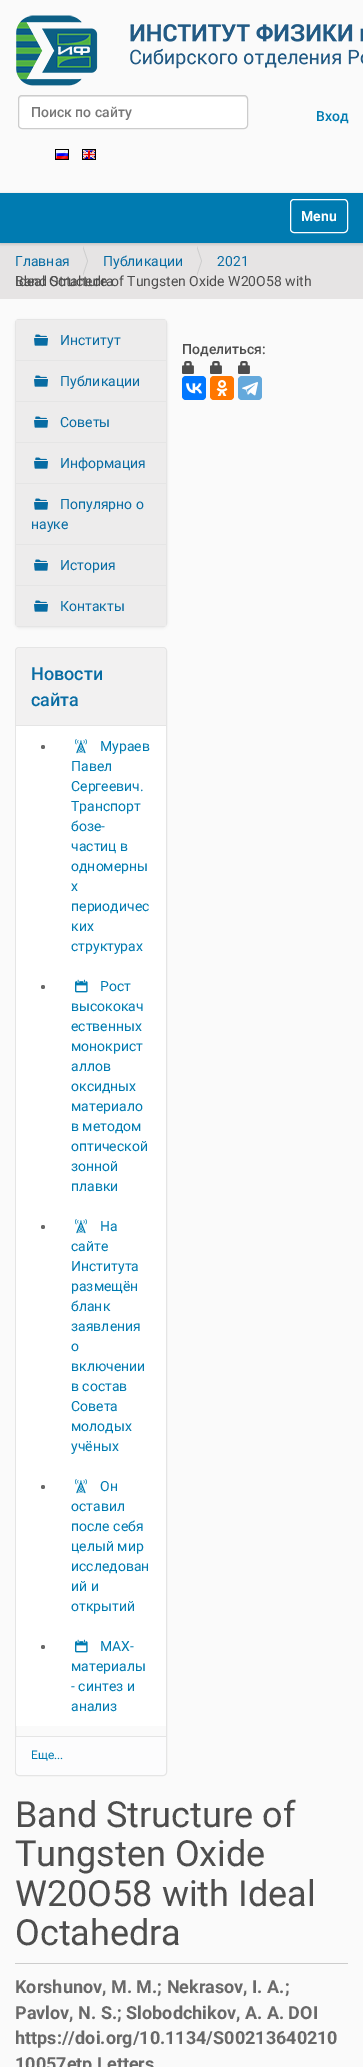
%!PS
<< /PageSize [363 2067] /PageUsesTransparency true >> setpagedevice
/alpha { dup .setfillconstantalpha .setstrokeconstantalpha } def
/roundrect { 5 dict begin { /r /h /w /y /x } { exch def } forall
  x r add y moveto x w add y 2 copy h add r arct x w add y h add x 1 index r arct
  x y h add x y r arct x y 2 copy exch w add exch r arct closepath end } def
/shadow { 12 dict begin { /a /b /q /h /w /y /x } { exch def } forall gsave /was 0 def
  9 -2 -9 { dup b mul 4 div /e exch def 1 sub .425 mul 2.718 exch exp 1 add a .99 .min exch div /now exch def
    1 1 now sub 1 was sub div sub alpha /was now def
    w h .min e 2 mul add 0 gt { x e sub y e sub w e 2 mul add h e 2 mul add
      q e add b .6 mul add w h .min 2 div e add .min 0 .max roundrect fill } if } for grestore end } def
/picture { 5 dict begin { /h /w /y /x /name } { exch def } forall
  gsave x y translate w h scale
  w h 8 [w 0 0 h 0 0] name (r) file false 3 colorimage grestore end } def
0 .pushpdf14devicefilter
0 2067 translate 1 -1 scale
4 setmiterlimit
0.98 setgray
0 0 363 2067 rectfill
(img1.rgb) 16 15 347 71 picture
1 setgray
18 95 230 34 4 roundrect fill
0.925 setgray
newpath 22 97 moveto 244 97 lineto 246 97 247 98 247 100 curveto 247 99 lineto 247 97 246 96 244 96 curveto 22 96 lineto 20 96 19 97 19 99 curveto 19 100 lineto 19 98 20 97 22 97 curveto closepath fill
0.8 setgray
18.5 95.5 229 33 3.5 roundrect stroke
/Roboto-Medium [14 0 0 -14 0 0] selectfont
0.467 setgray
31 117 moveto (Поиск по сайту) show
0 0.482 0.694 setrgbcolor
316 121 moveto (Вход) show
(img2.rgb) 55 149 14 11 picture
(img3.rgb) 82 149 14 11 picture
0.902 0.894 0.894 setrgbcolor
0 243 363 56 rectfill
0 setgray
0 194 363 50 0 1.5 0.17 shadow
0 0.482 0.694 setrgbcolor
0 193 363 50 rectfill
1 setgray
290.5 199.5 57 33 3.5 roundrect stroke
/Roboto-Bold [14 0 0 -14 0 0] selectfont
301 221 moveto (Menu) show
/Roboto-Regular [14 0 0 -14 0 0] selectfont
0.031 0.424 0.639 setrgbcolor
15 266 moveto (Главная) show
0.8 setgray
newpath 83 276 moveto 83 246 lineto 88 261 lineto closepath fill
0.902 0.894 0.894 setrgbcolor
newpath 82 276 moveto 82 246 lineto 87 261 lineto closepath fill
0.031 0.424 0.639 setrgbcolor
103 266 moveto (Публикации) show
0.8 setgray
newpath 197 276 moveto 197 246 lineto 202 261 lineto closepath fill
0.902 0.894 0.894 setrgbcolor
newpath 196 276 moveto 196 246 lineto 201 261 lineto closepath fill
0.031 0.424 0.639 setrgbcolor
217 266 moveto (2021) show
0.302 setgray
15 286 moveto (Band Structure of Tungsten Oxide W20O58 with) show
15 286 moveto (Ideal Octahedra) show
0 setgray
15 320 152 308 4 1.5 0.05 shadow
0.898 setgray
15.5 319.5 151 307 3.5 roundrect stroke
0.929 0.925 0.925 setrgbcolor
16 320 150 40 rectfill
(img4.rgb) 34 334 14 12 picture
0.031 0.424 0.639 setrgbcolor
60 345 moveto (Институт) show
0.929 0.925 0.925 setrgbcolor
16 361 150 40 rectfill
0.898 setgray
16 360 150 1 rectfill
(img4.rgb) 34 375 14 12 picture
0.031 0.424 0.639 setrgbcolor
60 386 moveto (Публикации) show
0.929 0.925 0.925 setrgbcolor
16 402 150 40 rectfill
0.898 setgray
16 401 150 1 rectfill
(img4.rgb) 34 416 14 12 picture
0.031 0.424 0.639 setrgbcolor
60 427 moveto (Советы) show
0.929 0.925 0.925 setrgbcolor
16 443 150 40 rectfill
0.898 setgray
16 442 150 1 rectfill
(img4.rgb) 34 457 14 12 picture
0.031 0.424 0.639 setrgbcolor
60 468 moveto (Информация) show
0.929 0.925 0.925 setrgbcolor
16 484 150 60 rectfill
0.898 setgray
16 483 150 1 rectfill
(img4.rgb) 34 498 14 12 picture
0.031 0.424 0.639 setrgbcolor
60 509 moveto (Популярно о) show
31 529 moveto (науке) show
0.929 0.925 0.925 setrgbcolor
16 545 150 40 rectfill
0.898 setgray
16 544 150 1 rectfill
(img4.rgb) 34 559 14 12 picture
0.031 0.424 0.639 setrgbcolor
60 570 moveto (История) show
0.929 0.925 0.925 setrgbcolor
16 586 150 40 rectfill
0.898 setgray
16 585 150 1 rectfill
(img4.rgb) 34 600 14 12 picture
0.031 0.424 0.639 setrgbcolor
60 611 moveto (Контакты) show
0.898 setgray
15.5 647.5 151 1128 3.5 roundrect stroke
0.949 0.945 0.945 setrgbcolor
newpath 20 648 moveto 162 648 lineto 164 648 166 650 166 652 curveto 166 725 lineto 16 725 lineto 16 652 lineto 16 650 18 648 20 648 curveto closepath fill
/Roboto-Medium [18 0 0 -18 0 0] selectfont
0.031 0.424 0.639 setrgbcolor
31 680 moveto (Новости) show
31 706 moveto (сайта) show
1 setgray
16 726 150 1000 rectfill
0.898 setgray
16 725 150 1 rectfill
0.412 setgray
newpath 43 747 2 0 360 arc closepath fill
(img5.rgb) 75 739 12 15 picture
/Roboto-Regular [14 0 0 -14 0 0] selectfont
0 0.482 0.694 setrgbcolor
100 751 moveto (Мураев) show
71 771 moveto (Павел) show
71 791 moveto (Сергеевич.) show
71 811 moveto (Транспорт) show
71 831 moveto (бозе-) show
71 851 moveto (частиц в) show
71 871 moveto (одномерны) show
71 891 moveto (х) show
71 911 moveto (периодичес) show
71 931 moveto (ких) show
71 951 moveto (структурах) show
0.412 setgray
newpath 43 987 2 0 360 arc closepath fill
(img6.rgb) 75 979 13 14 picture
0 0.482 0.694 setrgbcolor
100 991 moveto (Рост) show
71 1011 moveto (высококач) show
71 1031 moveto (ественных) show
71 1051 moveto (монокрист) show
71 1071 moveto (аллов) show
71 1091 moveto (оксидных) show
71 1111 moveto (материало) show
71 1131 moveto (в методом) show
71 1151 moveto (оптической) show
71 1171 moveto (зонной) show
71 1191 moveto (плавки) show
0.412 setgray
newpath 43 1227 2 0 360 arc closepath fill
(img5.rgb) 75 1219 12 15 picture
0 0.482 0.694 setrgbcolor
100 1231 moveto (На) show
71 1251 moveto (сайте) show
71 1271 moveto (Института) show
71 1291 moveto (размещён) show
71 1311 moveto (бланк) show
71 1331 moveto (заявления) show
71 1351 moveto (о) show
71 1371 moveto (включении) show
71 1391 moveto (в состав) show
71 1411 moveto (Совета) show
71 1431 moveto (молодых) show
71 1451 moveto (учёных) show
0.412 setgray
newpath 43 1487 2 0 360 arc closepath fill
(img5.rgb) 75 1479 12 15 picture
0 0.482 0.694 setrgbcolor
100 1491 moveto (Он) show
71 1511 moveto (оставил) show
71 1531 moveto (после себя) show
71 1551 moveto (целый мир) show
71 1571 moveto (исследован) show
71 1591 moveto (ий и) show
71 1611 moveto (открытий) show
0.412 setgray
newpath 43 1647 2 0 360 arc closepath fill
(img6.rgb) 75 1639 13 14 picture
0 0.482 0.694 setrgbcolor
100 1651 moveto (МАХ-) show
71 1671 moveto (материалы) show
71 1691 moveto (- синтез и) show
71 1711 moveto (анализ) show
0.988 0.988 0.992 setrgbcolor
newpath 16 1736 moveto 166 1736 lineto 166 1771 lineto 166 1773 164 1775 162 1775 curveto 20 1775 lineto 18 1775 16 1773 16 1771 curveto closepath fill
0.898 setgray
16 1736 150 1 rectfill
/Roboto-Regular [12 0 0 -12 0 0] selectfont
0 0.482 0.694 setrgbcolor
31 1759 moveto (Еще...) show
/Roboto-Medium [14 0 0 -14 0 0] selectfont
0.302 setgray
182 354 moveto (Поделиться:) show
(img7.rgb) 182 361 12 13 picture
0 0.467 1 setrgbcolor
182 376 24 24 4 roundrect fill
(img8.rgb) 186 383 16 11 picture
(img7.rgb) 210 361 12 13 picture
1 0.467 0 setrgbcolor
210 376 24 24 4 roundrect fill
(img9.rgb) 216 380 12 16 picture
(img7.rgb) 238 361 12 13 picture
0.392 0.663 0.863 setrgbcolor
238 376 24 24 4 roundrect fill
(img10.rgb) 242 382 16 14 picture
0.8 setgray
15 1963 333 1 rectfill
/Roboto-Regular [36 0 0 -36 0 0] selectfont
0.302 setgray
15 1827 moveto (Band Structure of) show
15 1866 moveto (Tungsten Oxide) show
15 1906 moveto (W20O58 with Ideal) show
15 1945 moveto (Octahedra) show
/Roboto-Bold [18 0 0 -18 0 0] selectfont
0.412 setgray
15 1993 moveto (Korshunov, M. M.; Nekrasov, I. A.;) show
15 2019 moveto (Pavlov, N. S.; Slobodchikov, A. A. DOI) show
15 2044 moveto (https://doi.org/10.1134/S00213640210) show
15 2070 moveto (10057etp Letters) show
.poppdf14devicefilter showpage
